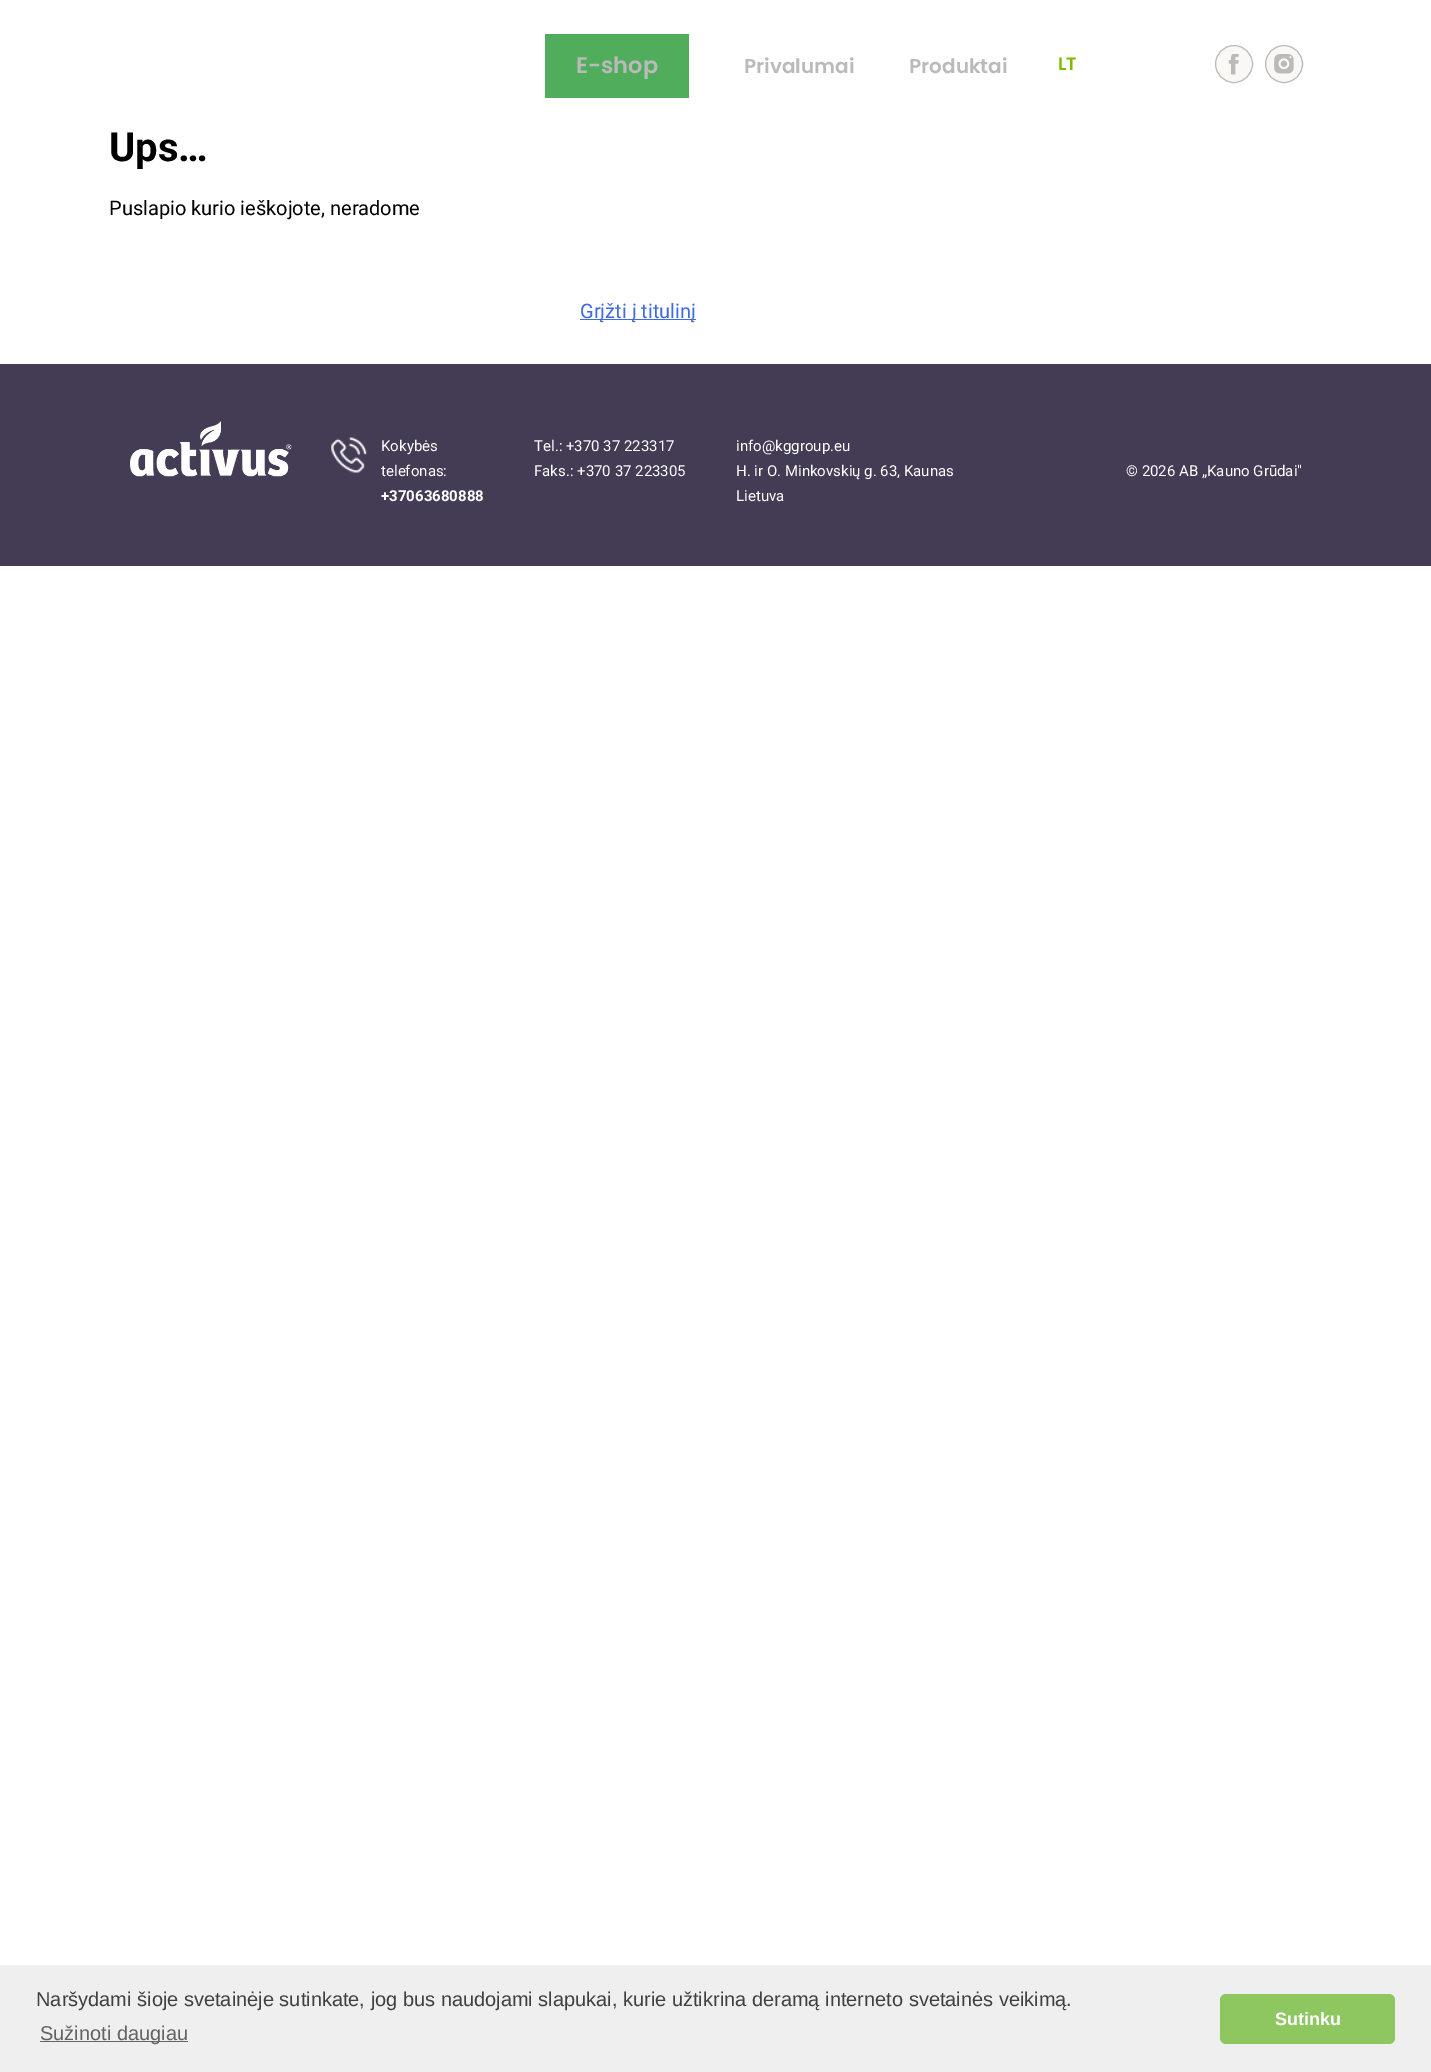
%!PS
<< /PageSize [1431 2072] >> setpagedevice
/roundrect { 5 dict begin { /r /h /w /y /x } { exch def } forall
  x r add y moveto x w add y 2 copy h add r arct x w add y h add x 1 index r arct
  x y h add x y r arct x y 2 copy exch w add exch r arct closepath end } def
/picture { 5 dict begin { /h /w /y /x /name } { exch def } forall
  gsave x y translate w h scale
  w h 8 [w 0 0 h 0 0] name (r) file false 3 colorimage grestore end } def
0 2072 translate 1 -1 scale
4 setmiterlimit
1 setgray
0 0 1431 2072 rectfill
0.31 0.678 0.357 setrgbcolor
545 34 144 64 rectfill
/Poppins-SemiBold [22.5 0 0 -22.5 0 0] selectfont
0.729 setgray
576 73 moveto (E-shop) show
/Poppins-SemiBold [20 0 0 -20 0 0] selectfont
744 73 moveto (Privalumai) show
909 73 moveto (Produktai) show
/Poppins-SemiBold [18 0 0 -18 0 0] selectfont
0.506 0.729 0 setrgbcolor
1058 70 moveto (LT) show
0.98 0.973 0.961 setrgbcolor
newpath 1234 64 18.5 0 360 arc closepath gsave fill grestore
0.733 setgray
stroke
(img1.rgb) 1228 54 11 21 picture
0.98 0.973 0.961 setrgbcolor
newpath 1284 64 18.5 0 360 arc closepath gsave fill grestore
0.733 setgray
stroke
(img2.rgb) 1274 54 20 20 picture
/Roboto-Bold [40 0 0 -40 0 0] selectfont
0 setgray
109 161 moveto (Ups…) show
/Roboto-Regular [20 0 0 -20 0 0] selectfont
109 215 moveto (Puslapio kurio ieškojote, neradome) show
0.255 0.412 0.882 setrgbcolor
580 319 116 1 rectfill
580 318 moveto (Grįžti į titulinį) show
0.267 0.231 0.333 setrgbcolor
0 364 1431 202 rectfill
(img3.rgb) 130 421 162 56 picture
(img4.rgb) 331 437 36 36 picture
/Roboto-Regular [15 0 0 -15 0 0] selectfont
1 setgray
381 451 moveto (Kokybės) show
381 476 moveto (telefonas:) show
/Roboto-Bold [15 0 0 -15 0 0] selectfont
381 501 moveto (+37063680888) show
/Roboto-Regular [15 0 0 -15 0 0] selectfont
534 451 moveto (Tel.: +370 37 223317) show
534 476 moveto (Faks.: +370 37 223305) show
736 451 moveto (info@kggroup.eu) show
736 476 moveto (H. ir O. Minkovskių g. 63, Kaunas) show
736 501 moveto (Lietuva) show
1126 476 moveto (© 2026 AB „Kauno Grūdai") show
0.937 setgray
0 1965 1431 107 rectfill
/LiberationSans-Regular [20 0 0 -20 0 0] selectfont
0.251 setgray
36 2006 moveto (Naršydami šioje svetainėje sutinkate, jog bus naudojami slapukai, kurie užtikrina deramą interneto svetainės veikimą.) show
0.388 setgray
40 2041 148 1 rectfill
40 2040 moveto (Sužinoti daugiau) show
0.557 0.78 0.376 setrgbcolor
1220 1994 175 50 6 roundrect fill
/LiberationSans-Bold [18 0 0 -18 0 0] selectfont
1 setgray
1275 2025 moveto (Sutinku) show
showpage
